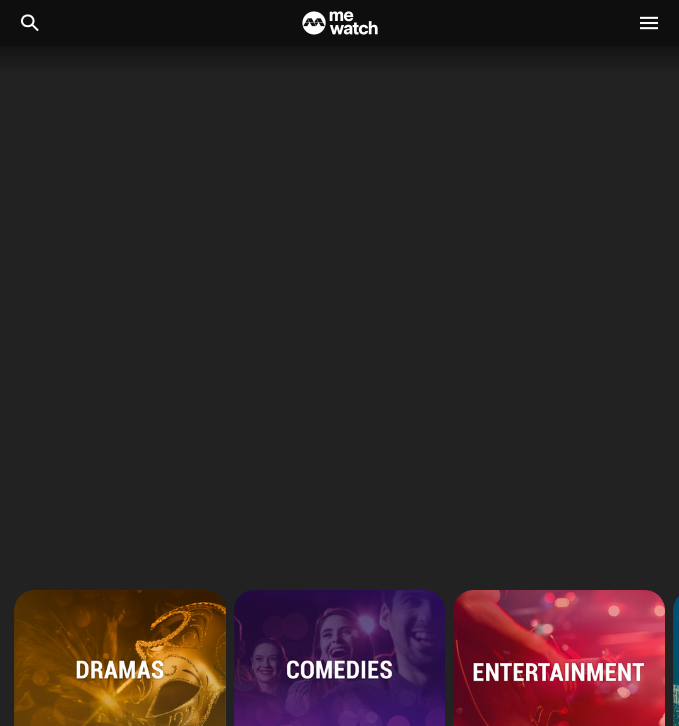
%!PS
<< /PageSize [679 726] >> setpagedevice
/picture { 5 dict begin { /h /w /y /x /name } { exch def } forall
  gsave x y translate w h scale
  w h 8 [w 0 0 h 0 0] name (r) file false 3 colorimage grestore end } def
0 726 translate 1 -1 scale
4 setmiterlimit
0.133 setgray
0 0 679 726 rectfill
0.055 setgray
0 0 679 46 rectfill
1 setgray
1.7 setlinewidth
newpath 22 21 moveto 22 28 33.5 28 33.5 21 curveto 33.5 13.5 22 13.5 22 21 curveto closepath 32 24.5 moveto 38 30.5 lineto stroke
(img1.rgb) 302 11 76 24 picture
(img2.rgb) 640 16 18 14 picture
gsave newpath 0 46 moveto 679 46 lineto 679 71 lineto 0 71 lineto closepath clip newpath
<< /ShadingType 2 /ColorSpace /DeviceRGB /Coords [340 76 340 46] /Extend [true true] /Function << /FunctionType 2 /Domain [0 1] /C0 [0.133 0.133 0.133] /C1 [0.078 0.078 0.078] /N 1 >> >> shfill grestore
(img3.rgb) 14 590 212 136 picture
(img4.rgb) 234 590 211 136 picture
(img5.rgb) 453 590 212 136 picture
(img6.rgb) 673 590 6 136 picture
showpage
